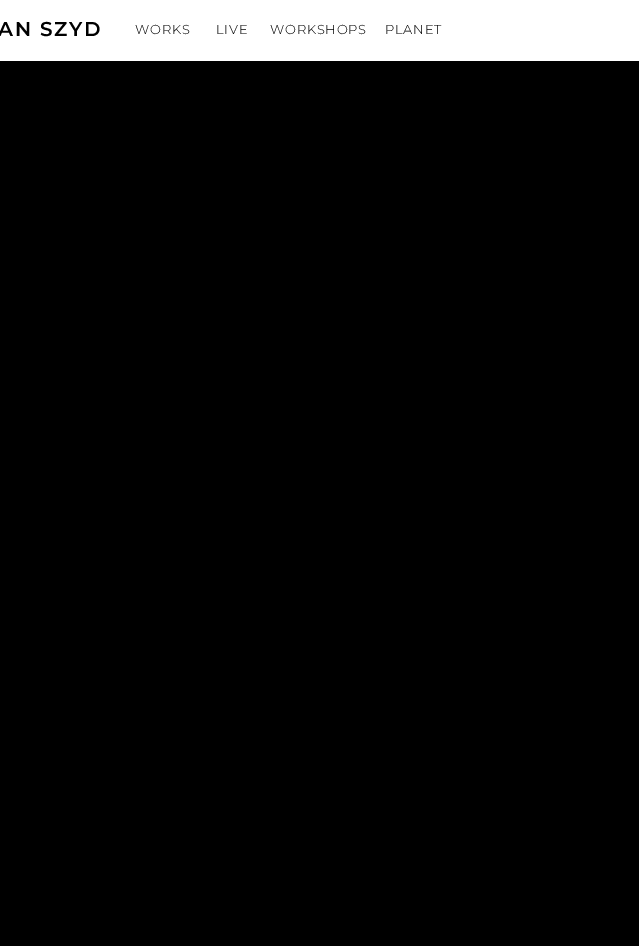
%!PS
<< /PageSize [639 946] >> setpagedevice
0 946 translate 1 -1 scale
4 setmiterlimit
1 setgray
0 0 639 946 rectfill
/Montserrat-SemiBold [20 0 0 -20 0 0] selectfont
0 setgray
-2 36 moveto 1.75 0 (AN SZYD) ashow
/Montserrat-Light [13 0 0 -13 0 0] selectfont
135 34 moveto 0.75 0 (WORKS) ashow
216 34 moveto 0.75 0 (LIVE) ashow
270 34 moveto 0.75 0 (WORKSHOPS) ashow
385 34 moveto 0.75 0 (PLANET) ashow
0 61 639 885 rectfill
showpage
